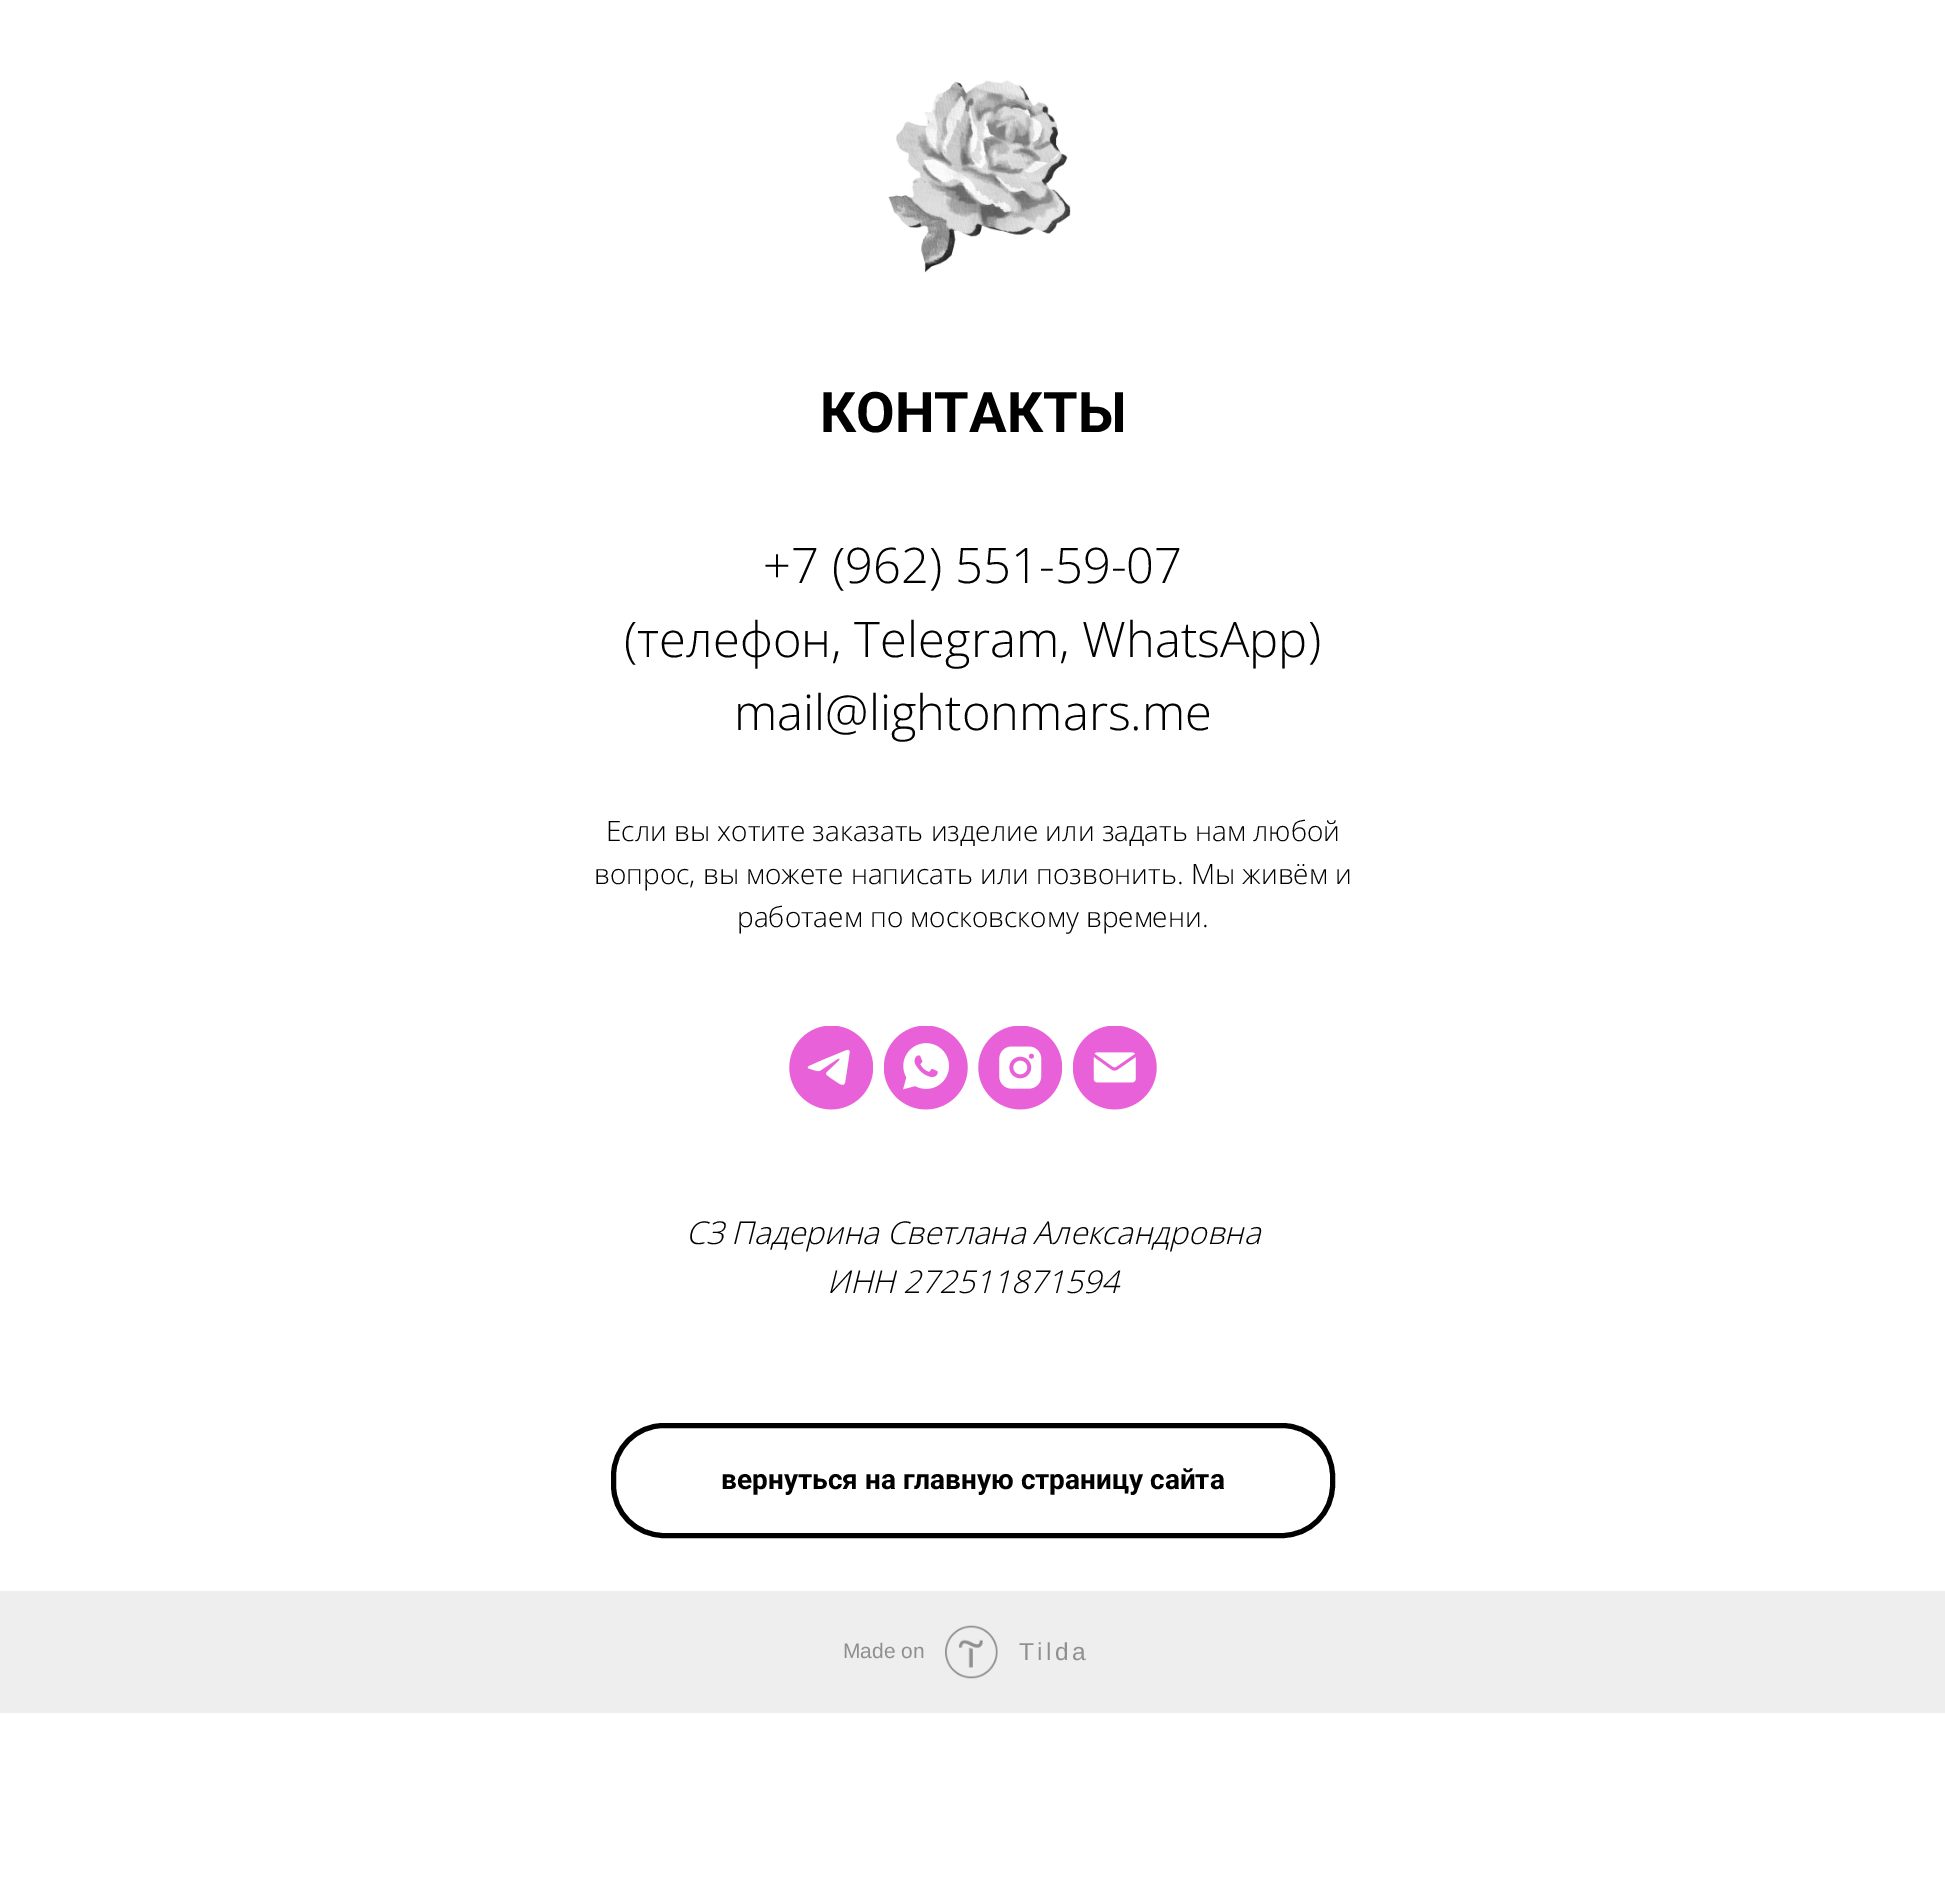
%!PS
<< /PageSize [1945 1886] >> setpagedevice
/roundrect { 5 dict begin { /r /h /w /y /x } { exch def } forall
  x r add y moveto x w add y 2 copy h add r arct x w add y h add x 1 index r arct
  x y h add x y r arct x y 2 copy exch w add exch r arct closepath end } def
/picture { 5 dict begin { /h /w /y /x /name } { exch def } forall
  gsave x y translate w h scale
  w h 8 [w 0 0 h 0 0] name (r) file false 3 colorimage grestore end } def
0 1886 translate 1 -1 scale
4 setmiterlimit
1 setgray
0 0 1945 1886 rectfill
(img1.rgb) 888 80 183 193 picture
/Roboto-Bold [56 0 0 -56 0 0] selectfont
0 setgray
820 432 moveto (КОНТАКТЫ) show
/OpenSans-Light [49 0 0 -49 0 0] selectfont
763 583 moveto (+7 \(962\) 551-59-07) show
624 657 moveto (\(телефон, Telegram, WhatsApp\)) show
734 730 moveto (mail@lightonmars.me) show
/OpenSans-Light [28 0 0 -28 0 0] selectfont
606 841 moveto (Если вы хотите заказать изделие или задать нам любой) show
594 884 moveto (вопрос, вы можете написать или позвонить. Мы живём и) show
737 927 moveto (работаем по московскому времени.) show
(img2.rgb) 789 1026 84 84 picture
(img3.rgb) 884 1026 84 84 picture
(img4.rgb) 978 1026 84 84 picture
(img5.rgb) 1073 1026 84 84 picture
/OpenSans-LightItalic [31.5 0 0 -31.5 0 0] selectfont
686 1244 moveto (СЗ Падерина Светлана Александровна) show
827 1293 moveto (ИНН 272511871594) show
5 setlinewidth
613.5 1425.5 719 110 50.5 roundrect stroke
/Roboto-Bold [28 0 0 -28 0 0] selectfont
721 1489 moveto (вернуться на главную страницу сайта) show
0.933 setgray
0 1591 1945 122 rectfill
/LiberationSans-Regular [21 0 0 -21 0 0] selectfont
0.561 setgray
843 1658 moveto (Made on) show
(img6.rgb) 945 1625 53 54 picture
/LiberationSans-Regular [24.5 0 0 -24.5 0 0] selectfont
1019 1660 moveto 3.5 0 (Tilda) ashow
showpage
